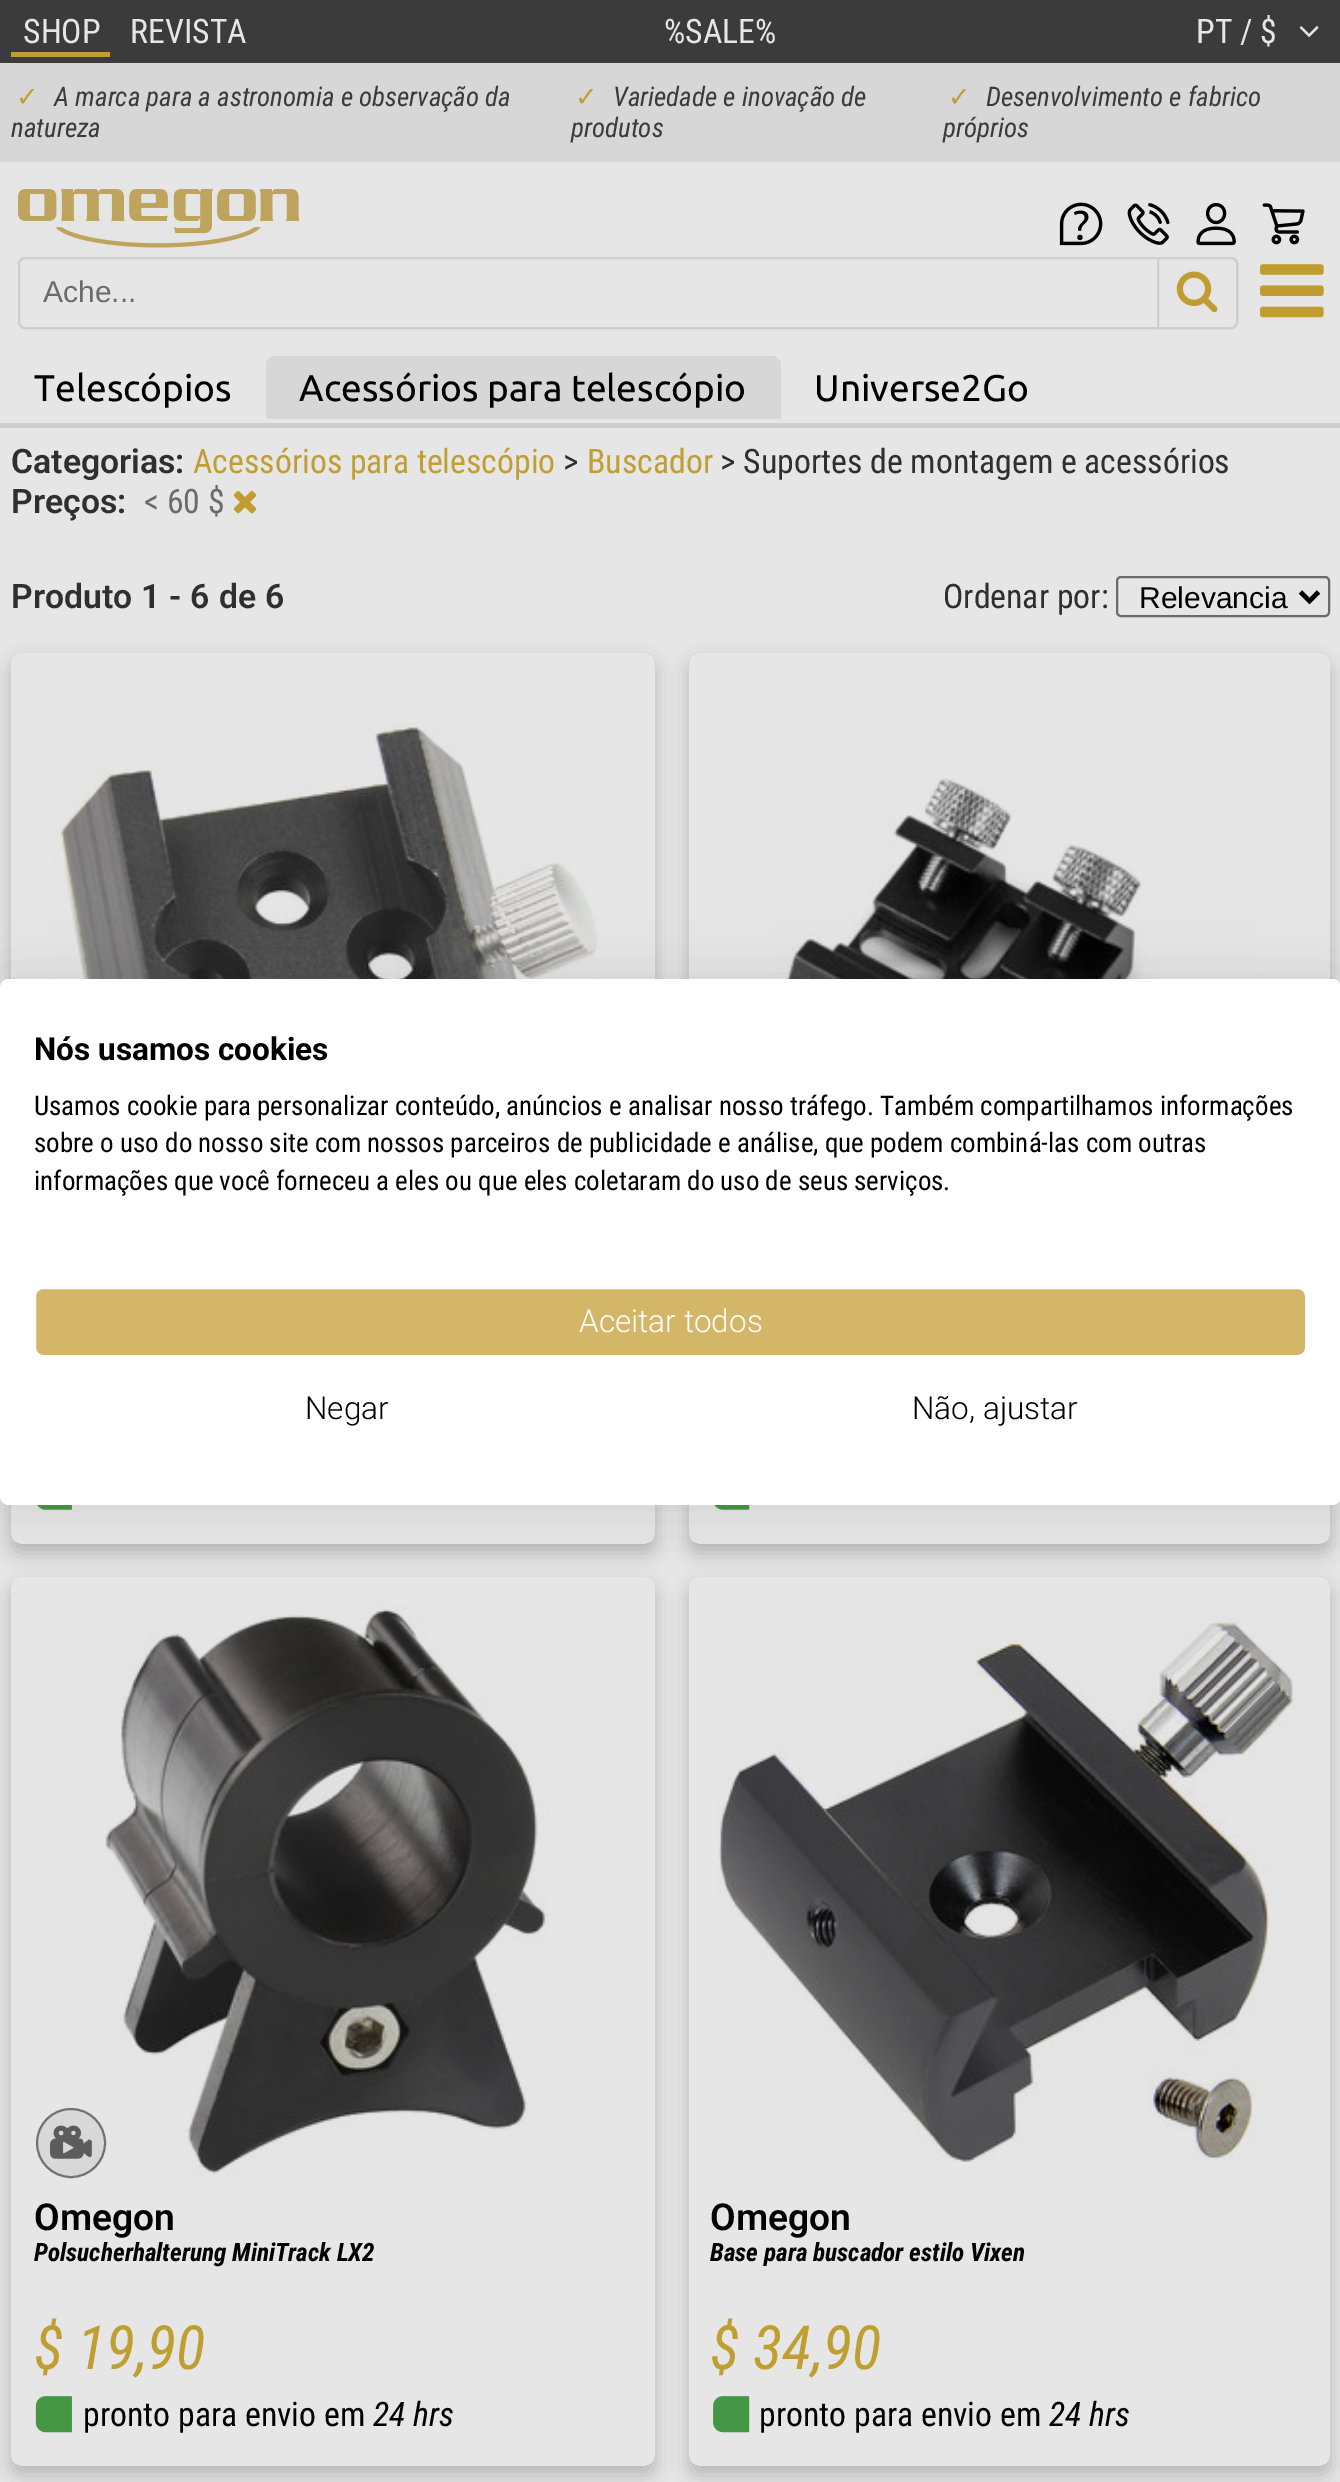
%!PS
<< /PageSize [1340 2482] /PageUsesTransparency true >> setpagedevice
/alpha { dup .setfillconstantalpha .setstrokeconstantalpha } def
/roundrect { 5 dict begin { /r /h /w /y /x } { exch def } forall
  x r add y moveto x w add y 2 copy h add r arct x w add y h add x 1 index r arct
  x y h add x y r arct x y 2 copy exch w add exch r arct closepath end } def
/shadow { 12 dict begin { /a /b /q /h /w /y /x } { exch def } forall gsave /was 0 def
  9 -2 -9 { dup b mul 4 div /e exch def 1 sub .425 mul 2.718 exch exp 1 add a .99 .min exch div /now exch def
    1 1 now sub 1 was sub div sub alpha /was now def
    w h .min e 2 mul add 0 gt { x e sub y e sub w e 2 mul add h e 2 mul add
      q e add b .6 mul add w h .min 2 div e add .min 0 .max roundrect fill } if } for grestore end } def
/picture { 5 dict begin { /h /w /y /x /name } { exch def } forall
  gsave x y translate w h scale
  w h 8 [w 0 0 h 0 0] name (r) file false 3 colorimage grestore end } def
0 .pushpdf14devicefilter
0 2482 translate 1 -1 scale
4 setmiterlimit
0.902 setgray
0 0 1340 2482 rectfill
0.231 0.231 0.235 setrgbcolor
0 0 1340 63 rectfill
/RobotoCondensed-Regular [33.75 0 0 -33.75 0 0] selectfont
0.902 setgray
23 43 moveto (SHOP) show
0.749 0.62 0.196 setrgbcolor
11 52 99 5 rectfill
0.902 setgray
130 43 moveto (REVISTA) show
664 43 moveto (%SALE%) show
1196 43 moveto (PT / $) show
(img1.rgb) 1299 26 20 11 picture
0.843 setgray
0 63 1340 99 rectfill
/DejaVuSans-Regular [27 0 0 -27 0 0] selectfont
0.749 0.62 0.196 setrgbcolor
16 106 moveto (✓) show
/RobotoCondensed-Italic [27 0 0 -27 0 0] selectfont
0.231 0.231 0.235 setrgbcolor
54 106 moveto (A marca para a astronomia e observação da) show
11 137 moveto (natureza) show
/DejaVuSans-Regular [27 0 0 -27 0 0] selectfont
0.749 0.62 0.196 setrgbcolor
575 106 moveto (✓) show
/RobotoCondensed-Italic [27 0 0 -27 0 0] selectfont
0.231 0.231 0.235 setrgbcolor
613 106 moveto (Variedade e inovação de) show
571 137 moveto (produtos) show
/DejaVuSans-Regular [27 0 0 -27 0 0] selectfont
0.749 0.62 0.196 setrgbcolor
948 106 moveto (✓) show
/RobotoCondensed-Italic [27 0 0 -27 0 0] selectfont
0.231 0.231 0.235 setrgbcolor
986 106 moveto (Desenvolvimento e fabrico) show
943 137 moveto (próprios) show
(img2.rgb) 18 189 282 59 picture
(img3.rgb) 1059 202 44 44 picture
(img4.rgb) 1127 203 43 42 picture
(img5.rgb) 1196 202 40 44 picture
(img6.rgb) 1262 203 43 42 picture
0.808 setgray
2 setlinewidth
19 258 1218 70 6 roundrect stroke
/LiberationSans-Regular [30 0 0 -30 0 0] selectfont
0.42 setgray
43 302 moveto (Ache...) show
0.902 setgray
newpath 1158 258 moveto 1231 258 lineto 1234.5 258 1237 260.5 1237 264 curveto 1237 322 lineto 1237 325.5 1234.5 328 1231 328 curveto 1158 328 lineto closepath gsave fill grestore
0.808 setgray
stroke
(img7.rgb) 1176 271 42 42 picture
(img8.rgb) 1260 264 64 54 picture
/Ubuntu-Regular [37.1 0 0 -37.1 0 0] selectfont
0 setgray
34 401 moveto (Telescópios) show
0.843 setgray
newpath 275 356 moveto 772 356 lineto 777 356 781 360 781 365 curveto 781 419 lineto 266 419 lineto 266 365 lineto 266 360 270 356 275 356 curveto closepath fill
0 setgray
299 401 moveto (Acessórios para telescópio) show
814 401 moveto (Universe2Go) show
0.808 setgray
0 423 1340 5 rectfill
/Roboto-SemiBold [33.75 0 0 -33.75 0 0] selectfont
0.184 setgray
11 473 moveto (Categorias:) show
/RobotoCondensed-Regular [33.75 0 0 -33.75 0 0] selectfont
0.749 0.62 0.196 setrgbcolor
193 473 moveto (Acessórios para telescópio) show
0.184 setgray
563 473 moveto (>) show
0.749 0.62 0.196 setrgbcolor
587 473 moveto (Buscador) show
0.184 setgray
720 473 moveto (> Suportes de montagem e acessórios) show
/Roboto-SemiBold [33.75 0 0 -33.75 0 0] selectfont
11 513 moveto (Preços:) show
/RobotoCondensed-Regular [33.75 0 0 -33.75 0 0] selectfont
0.42 setgray
144 513 moveto (< 60 $) show
(img9.rgb) 233 491 24 23 picture
/Roboto-SemiBold [33.75 0 0 -33.75 0 0] selectfont
0.184 setgray
11 608 moveto 0.5 0 32 (Produto 1 - 6 de 6) widthshow
/RobotoCondensed-Regular [33.75 0 0 -33.75 0 0] selectfont
943 608 moveto (Ordenar por:) show
0.416 setgray
1117 577 212 39 4 roundrect stroke
0 setgray
4.5 setlinewidth
newpath 1300.5 592 moveto 1309.5 601 lineto 1318.5 592 lineto stroke
/LiberationSans-Regular [30 0 0 -30 0 0] selectfont
1139 608 moveto (Relevancia) show
gsave
newpath 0 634 moveto 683 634 lineto 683 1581 lineto 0 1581 lineto closepath 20 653 moveto 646 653 lineto 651 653 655 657 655 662 curveto 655 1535 lineto 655 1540 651 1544 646 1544 curveto 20 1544 lineto 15 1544 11 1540 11 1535 curveto 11 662 lineto 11 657 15 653 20 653 curveto closepath eoclip newpath
11 662 644 891 9 9 0.2 shadow
grestore
(img10.rgb) 50 722 548 257 picture
(img11.rgb) 37 1505 35 5 picture
gsave
newpath 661 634 moveto 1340 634 lineto 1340 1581 lineto 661 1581 lineto closepath 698 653 moveto 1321 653 lineto 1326 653 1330 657 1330 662 curveto 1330 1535 lineto 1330 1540 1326 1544 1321 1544 curveto 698 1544 lineto 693 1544 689 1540 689 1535 curveto 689 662 lineto 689 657 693 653 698 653 curveto closepath eoclip newpath
689 662 641 891 9 9 0.2 shadow
grestore
(img12.rgb) 773 777 484 202 picture
(img13.rgb) 714 1505 36 5 picture
gsave
newpath 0 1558 moveto 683 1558 lineto 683 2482 lineto 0 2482 lineto closepath 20 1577 moveto 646 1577 lineto 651 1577 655 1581 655 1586 curveto 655 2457 lineto 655 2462 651 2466 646 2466 curveto 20 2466 lineto 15 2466 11 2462 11 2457 curveto 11 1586 lineto 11 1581 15 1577 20 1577 curveto closepath eoclip newpath
11 1586 644 889 9 9 0.2 shadow
grestore
(img15.rgb) 105 1602 445 575 picture
0.847 setgray
newpath 71 2143 34 0 360 arc closepath gsave fill grestore
0.451 setgray
2 setlinewidth
stroke
(img14.rgb) 50 2125 42 34 picture
/Roboto-SemiBold [37.1 0 0 -37.1 0 0] selectfont
0 setgray
34 2230 moveto (Omegon) show
/RobotoCondensed-BoldItalic [25.25 0 0 -25.25 0 0] selectfont
34 2261 moveto (Polsucherhalterung MiniTrack LX2) show
/RobotoCondensed-Italic [61 0 0 -61 0 0] selectfont
0.749 0.62 0.196 setrgbcolor
34 2369 moveto ($ 19,90) show
(img16.rgb) 35 2396 37 37 picture
/RobotoCondensed-Regular [33.75 0 0 -33.75 0 0] selectfont
0 setgray
83 2426 moveto (pronto para envio em) show
/RobotoCondensed-Italic [33.75 0 0 -33.75 0 0] selectfont
373 2426 moveto (24 hrs) show
gsave
newpath 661 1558 moveto 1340 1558 lineto 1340 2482 lineto 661 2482 lineto closepath 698 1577 moveto 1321 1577 lineto 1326 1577 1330 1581 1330 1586 curveto 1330 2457 lineto 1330 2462 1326 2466 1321 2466 curveto 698 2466 lineto 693 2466 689 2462 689 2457 curveto 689 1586 lineto 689 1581 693 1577 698 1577 curveto closepath eoclip newpath
689 1586 641 889 9 9 0.2 shadow
grestore
(img17.rgb) 717 1615 579 547 picture
/Roboto-SemiBold [37.1 0 0 -37.1 0 0] selectfont
710 2230 moveto (Omegon) show
/RobotoCondensed-BoldItalic [25.25 0 0 -25.25 0 0] selectfont
710 2261 moveto (Base para buscador estilo Vixen) show
/RobotoCondensed-Italic [61 0 0 -61 0 0] selectfont
0.749 0.62 0.196 setrgbcolor
710 2369 moveto ($ 34,90) show
(img18.rgb) 713 2396 37 37 picture
/RobotoCondensed-Regular [33.75 0 0 -33.75 0 0] selectfont
0 setgray
759 2426 moveto (pronto para envio em) show
/RobotoCondensed-Italic [33.75 0 0 -33.75 0 0] selectfont
1049 2426 moveto (24 hrs) show
0 979 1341 526 9 27 0.1 shadow
1 setgray
0 979 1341 526 9 roundrect fill
/Roboto-Bold [31.5 0 0 -31.5 0 0] selectfont
0 setgray
34 1060 moveto (Nós usamos cookies) show
/RobotoCondensed-Regular [27 0 0 -27 0 0] selectfont
34 1115 moveto (Usamos cookie para personalizar conteúdo, anúncios e analisar nosso tráfego. Também compartilhamos informações) show
34 1152 moveto (sobre o uso do nosso site com nossos parceiros de publicidade e análise, que podem combiná-las com outras) show
34 1190 moveto (informações que você forneceu a eles ou que eles coletaram do uso de seus serviços.) show
0.831 0.714 0.408 setrgbcolor
35 1288 1271 68 8 roundrect gsave fill grestore
1 setgray
stroke
/Roboto-Light [31.5 0 0 -31.5 0 0] selectfont
579 1332 moveto (Aceitar todos) show
0 setgray
305 1419 moveto (Negar) show
912 1419 moveto (Não, ajustar) show
.poppdf14devicefilter showpage
